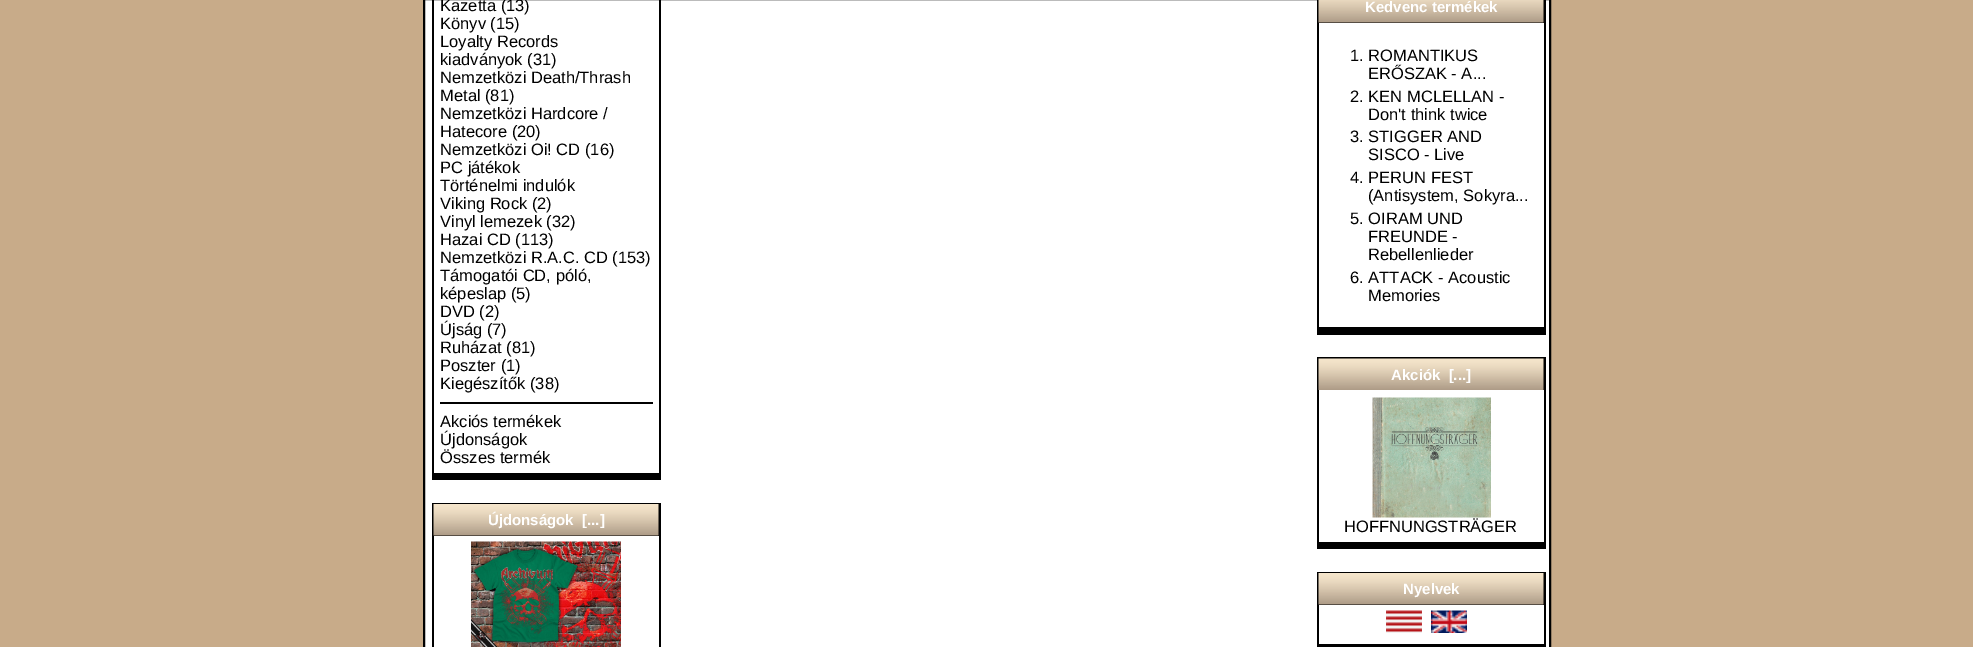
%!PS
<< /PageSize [1973 647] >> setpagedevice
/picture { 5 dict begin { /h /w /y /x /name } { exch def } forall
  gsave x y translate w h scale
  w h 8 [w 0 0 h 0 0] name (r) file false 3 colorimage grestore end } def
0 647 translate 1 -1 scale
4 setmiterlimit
0.784 0.671 0.537 setrgbcolor
0 0 1973 647 rectfill
1 setgray
newpath 424 -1 moveto 1550 -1 lineto 1550 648 lineto 424 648 lineto closepath gsave fill grestore
0 setgray
2 setlinewidth
stroke
659 0 2 480 rectfill
432 473 228 7 rectfill
432 0 2 480 rectfill
/LiberationSans-Regular [16.5 0 0 -16.5 0 0] selectfont
440 11 moveto (Kazetta \(13\)) show
440 29 moveto (Könyv \(15\)) show
440 47 moveto (Loyalty Records) show
440 65 moveto (kiadványok \(31\)) show
440 83 moveto (Nemzetközi Death/Thrash) show
440 101 moveto (Metal \(81\)) show
440 119 moveto (Nemzetközi Hardcore /) show
440 137 moveto (Hatecore \(20\)) show
440 155 moveto (Nemzetközi Oi! CD \(16\)) show
440 173 moveto (PC játékok) show
440 191 moveto (Történelmi indulók) show
440 209 moveto (Viking Rock \(2\)) show
440 227 moveto (Vinyl lemezek \(32\)) show
440 245 moveto (Hazai CD \(113\)) show
440 263 moveto (Nemzetközi R.A.C. CD \(153\)) show
440 281 moveto (Támogatói CD, póló,) show
440 299 moveto (képeslap \(5\)) show
440 317 moveto (DVD \(2\)) show
440 335 moveto (Újság \(7\)) show
440 353 moveto (Ruházat \(81\)) show
440 371 moveto (Poszter \(1\)) show
440 389 moveto (Kiegészítők \(38\)) show
440 402 213 2 rectfill
440 427 moveto (Akciós termékek) show
440 445 moveto (Újdonságok) show
440 463 moveto (Összes termék) show
432 503 228 1 rectfill
659 503 2 144 rectfill
432 503 2 144 rectfill
434 504 225 32 rectfill
(img1.rgb) 433 504 226 32 picture
/LiberationSans-Bold [15 0 0 -15 0 0] selectfont
1 setgray
488 525 moveto (Újdonságok  [...]) show
(img2.rgb) 471 541 150 106 picture
0 setgray
1544 0 2 335 rectfill
1317 327 228 8 rectfill
1317 0 2 335 rectfill
1319 0 225 23 rectfill
(img3.rgb) 1318 0 226 23 picture
1 setgray
1365 12 moveto (Kedvenc termékek) show
/LiberationSans-Regular [16.5 0 0 -16.5 0 0] selectfont
0 setgray
1350 61 moveto (1. ROMANTIKUS) show
1368 79 moveto (ERŐSZAK - A...) show
1350 102 moveto (2. KEN MCLELLAN -) show
1368 120 moveto (Don't think twice) show
1350 142 moveto (3. STIGGER AND) show
1368 160 moveto (SISCO - Live) show
1350 183 moveto (4. PERUN FEST) show
1368 201 moveto (\(Antisystem, Sokyra...) show
1350 224 moveto (5. OIRAM UND) show
1368 242 moveto (FREUNDE -) show
1368 260 moveto (Rebellenlieder) show
1350 283 moveto (6. ATTACK - Acoustic) show
1368 301 moveto (Memories) show
1317 357 228 2 rectfill
1544 357 2 192 rectfill
1317 542 228 7 rectfill
1317 357 2 192 rectfill
1543 359 1 31 rectfill
(img4.rgb) 1318 358 226 32 picture
/LiberationSans-Bold [15 0 0 -15 0 0] selectfont
1 setgray
1391 380 moveto (Akciók  [...]) show
(img5.rgb) 1372 397 119 121 picture
/LiberationSans-Regular [16.5 0 0 -16.5 0 0] selectfont
0 setgray
1344 532 moveto (HOFFNUNGSTRÄGER) show
1317 572 228 1 rectfill
1544 572 2 75 rectfill
1317 644 228 3 rectfill
1317 572 2 75 rectfill
1319 573 225 32 rectfill
(img6.rgb) 1318 573 226 32 picture
/LiberationSans-Bold [15 0 0 -15 0 0] selectfont
1 setgray
1403 594 moveto (Nyelvek) show
(img7.rgb) 1386 610 36 23 picture
(img8.rgb) 1431 610 36 23 picture
showpage
